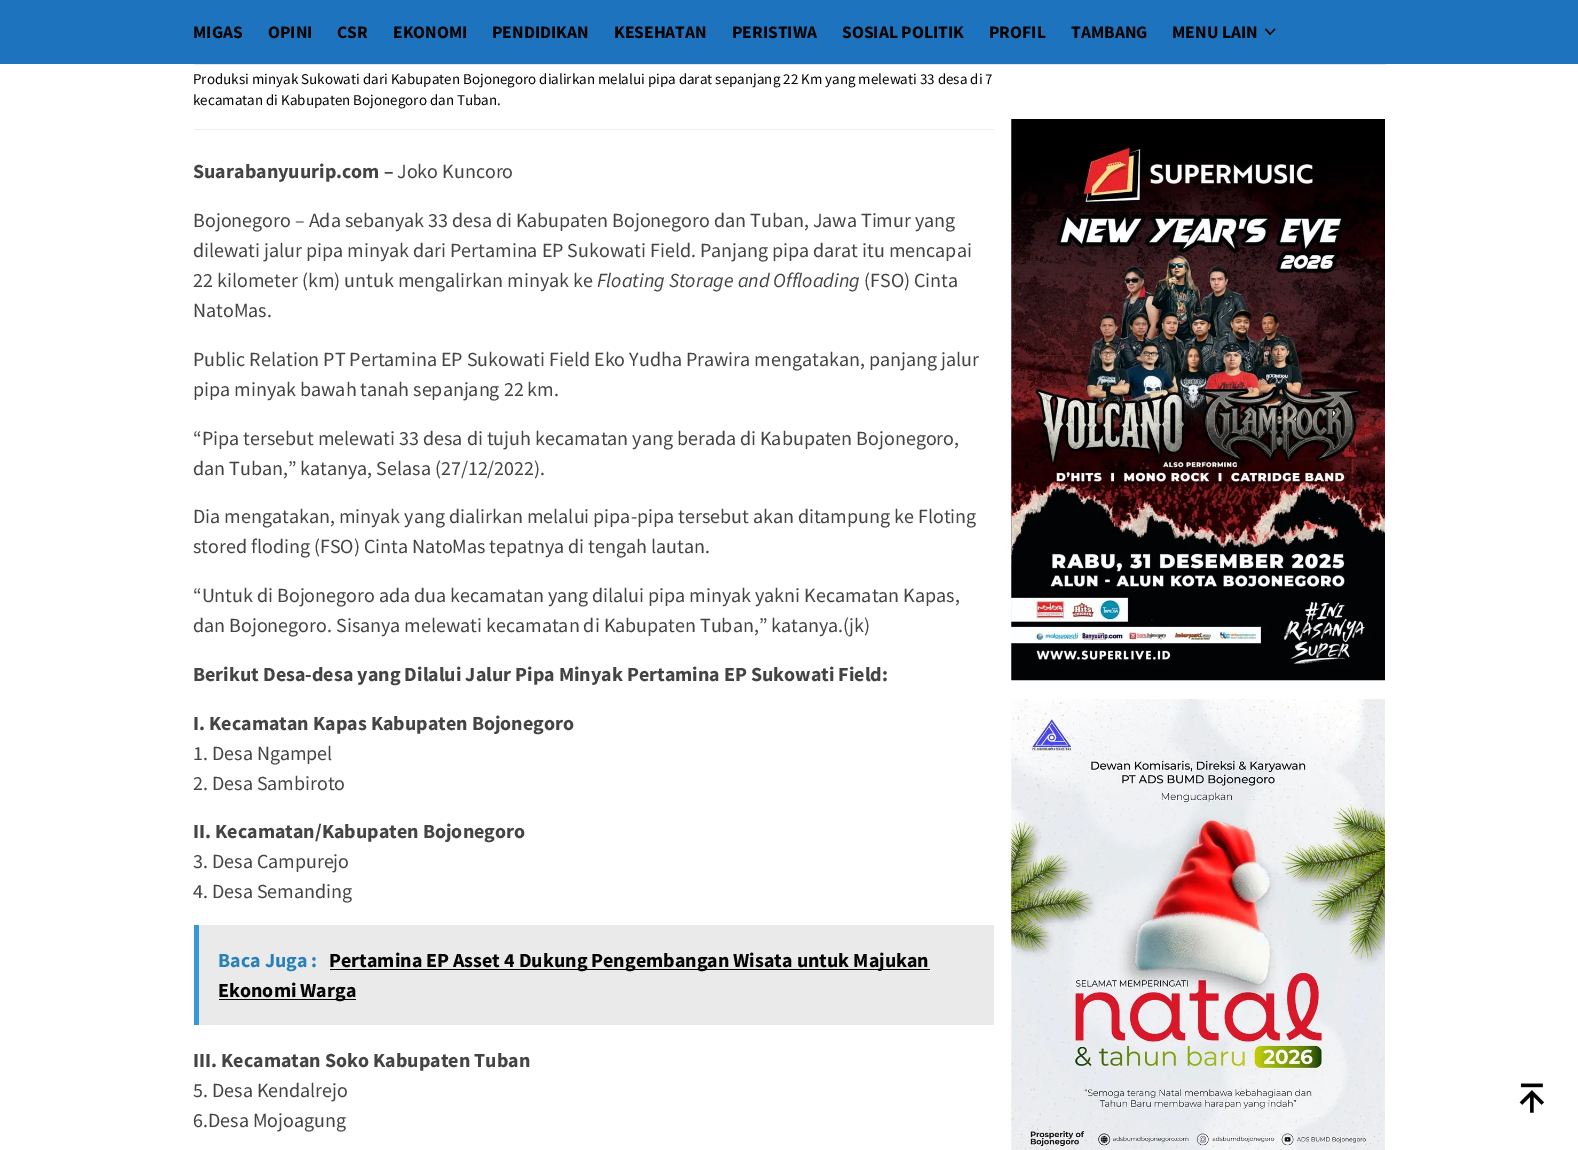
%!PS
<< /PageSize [1578 1150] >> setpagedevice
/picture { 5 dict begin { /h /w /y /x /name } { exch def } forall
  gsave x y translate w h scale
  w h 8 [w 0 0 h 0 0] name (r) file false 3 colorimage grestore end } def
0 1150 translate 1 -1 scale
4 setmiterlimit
1 setgray
0 0 1578 1150 rectfill
0.118 0.451 0.745 setrgbcolor
0 0 1578 64 rectfill
0.902 setgray
194 64 1192 1 rectfill
/SourceSansPro-Bold [17.5 0 0 -17.5 0 0] selectfont
0.016 setgray
193 38 moveto (MIGAS) show
268 38 moveto (OPINI) show
337 38 moveto (CSR) show
393 38 moveto (EKONOMI) show
492 38 moveto (PENDIDIKAN) show
614 38 moveto (KESEHATAN) show
732 38 moveto (PERISTIWA) show
842 38 moveto (SOSIAL POLITIK) show
989 38 moveto (PROFIL) show
1071 38 moveto (TAMBANG) show
1172 38 moveto (MENU LAIN) show
0 setgray
newpath 1274.5 28.5 moveto 1275.5 29.5 lineto 1270 35 lineto 1269.5 34 lineto closepath fill
newpath 1266 28.5 moveto 1271 34 lineto 1270 35 lineto 1265 29.5 lineto closepath fill
0.933 setgray
194 129 800 1 rectfill
/SourceSansPro-Regular [15 0 0 -15 0 0] selectfont
0.016 setgray
193 84 moveto (Produksi minyak Sukowati dari Kabupaten Bojonegoro dialirkan melalui pipa darat sepanjang 22 Km yang melewati 33 desa di 7) show
193 105 moveto (kecamatan di Kabupaten Bojonegoro dan Tuban.) show
/SourceSansPro-Bold [20 0 0 -20 0 0] selectfont
0.267 setgray
193 178 moveto (Suarabanyuurip.com –) show
/SourceSansPro-Regular [20 0 0 -20 0 0] selectfont
397 178 moveto (Joko Kuncoro) show
193 227 moveto (Bojonegoro – Ada sebanyak 33 desa di Kabupaten Bojonegoro dan Tuban, Jawa Timur yang) show
193 257 moveto (dilewati jalur pipa minyak dari Pertamina EP Sukowati Field. Panjang pipa darat itu mencapai) show
193 287 moveto (22 kilometer \(km\) untuk mengalirkan minyak ke) show
/SourceSansPro-Italic [20 0 0 -20 0 0] selectfont
597 287 moveto (Floating Storage and Offloading) show
/SourceSansPro-Regular [20 0 0 -20 0 0] selectfont
864 287 moveto (\(FSO\) Cinta) show
193 317 moveto (NatoMas.) show
193 366 moveto (Public Relation PT Pertamina EP Sukowati Field Eko Yudha Prawira mengatakan, panjang jalur) show
193 396 moveto (pipa minyak bawah tanah sepanjang 22 km.) show
193 445 moveto (“Pipa tersebut melewati 33 desa di tujuh kecamatan yang berada di Kabupaten Bojonegoro,) show
193 475 moveto (dan Tuban,” katanya, Selasa \(27/12/2022\).) show
193 523 moveto (Dia mengatakan, minyak yang dialirkan melalui pipa-pipa tersebut akan ditampung ke Floting) show
193 553 moveto (stored floding \(FSO\) Cinta NatoMas tepatnya di tengah lautan.) show
193 602 moveto (“Untuk di Bojonegoro ada dua kecamatan yang dilalui pipa minyak yakni Kecamatan Kapas,) show
193 632 moveto (dan Bojonegoro. Sisanya melewati kecamatan di Kabupaten Tuban,” katanya.\(jk\)) show
/SourceSansPro-Bold [20 0 0 -20 0 0] selectfont
193 681 moveto (Berikut Desa-desa yang Dilalui Jalur Pipa Minyak Pertamina EP Sukowati Field:) show
193 730 moveto (I. Kecamatan Kapas Kabupaten Bojonegoro) show
/SourceSansPro-Regular [20 0 0 -20 0 0] selectfont
193 760 moveto (1. Desa Ngampel) show
193 790 moveto (2. Desa Sambiroto) show
/SourceSansPro-Bold [20 0 0 -20 0 0] selectfont
193 838 moveto (II. Kecamatan/Kabupaten Bojonegoro) show
/SourceSansPro-Regular [20 0 0 -20 0 0] selectfont
193 868 moveto (3. Desa Campurejo) show
193 898 moveto (4. Desa Semanding) show
0.918 setgray
199 925 795 100 rectfill
0.204 0.596 0.859 setrgbcolor
194 925 5 100 rectfill
/SourceSansPro-Bold [20 0 0 -20 0 0] selectfont
0.161 0.502 0.725 setrgbcolor
218 967 moveto (Baca Juga :) show
0 setgray
330 969 600 1 rectfill
0.016 setgray
329 967 moveto (Pertamina EP Asset 4 Dukung Pengembangan Wisata untuk Majukan) show
0 setgray
219 999 137 1 rectfill
0.016 setgray
218 997 moveto (Ekonomi Warga) show
0.267 setgray
193 1067 moveto (III. Kecamatan Soko Kabupaten Tuban) show
/SourceSansPro-Regular [20 0 0 -20 0 0] selectfont
193 1097 moveto (5. Desa Kendalrejo) show
193 1127 moveto (6.Desa Mojoagung) show
(img1.rgb) 1011 119 374 562 picture
(img2.rgb) 1011 699 374 451 picture
(img3.rgb) 1519 1083 25 30 picture
showpage
